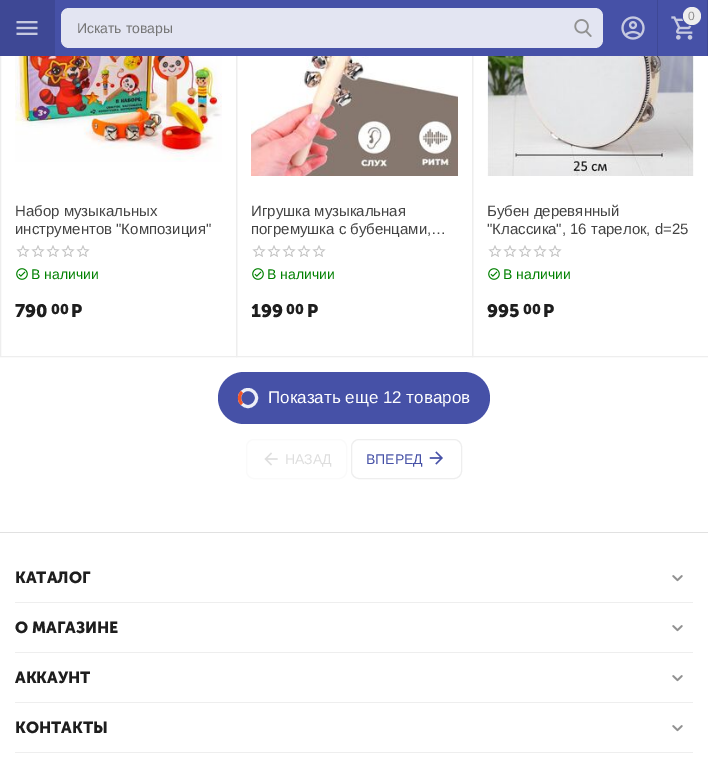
%!PS
<< /PageSize [708 762] >> setpagedevice
/roundrect { 5 dict begin { /r /h /w /y /x } { exch def } forall
  x r add y moveto x w add y 2 copy h add r arct x w add y h add x 1 index r arct
  x y h add x y r arct x y 2 copy exch w add exch r arct closepath end } def
/picture { 5 dict begin { /h /w /y /x /name } { exch def } forall
  gsave x y translate w h scale
  w h 8 [w 0 0 h 0 0] name (r) file false 3 colorimage grestore end } def
0 762 translate 1 -1 scale
4 setmiterlimit
1 setgray
0 0 708 762 rectfill
0.933 setgray
0.5 -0.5 236 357 rectstroke
236.5 -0.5 236 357 rectstroke
472.5 -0.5 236 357 rectstroke
0.275 0.318 0.655 setrgbcolor
55 0 652 56 rectfill
0.243 0.282 0.584 setrgbcolor
657 0 1 56 rectfill
(img1.rgb) 621 16 24 24 picture
707 0 1 56 rectfill
(img2.rgb) 671 16 22 24 picture
0.275 0.318 0.655 setrgbcolor
newpath 692 16 9.5 0 360 arc closepath stroke
0.933 setgray
newpath 692 16 9 0 360 arc closepath fill
/LiberationSans-Regular [12 0 0 -12 0 0] selectfont
0.569 setgray
688 20 moveto (0) show
0.243 0.282 0.584 setrgbcolor
0 0 55 56 rectfill
(img3.rgb) 16 21 22 14 picture
0.89 0.898 0.949 setrgbcolor
61 8 542 40 8 roundrect fill
/LiberationSans-Regular [14 0 0 -14 0 0] selectfont
0.459 setgray
77 33 moveto (Искать товары) show
(img4.rgb) 574 19 18 18 picture
(img5.rgb) 15 56 207 106 picture
/LiberationSans-Regular [15 0 0 -15 0 0] selectfont
0.263 setgray
15 216 moveto (Набор музыкальных) show
15 234 moveto (инструментов "Композиция") show
(img6.rgb) 16 245 14 12 picture
(img6.rgb) 31 245 14 12 picture
(img6.rgb) 46 245 14 12 picture
(img6.rgb) 61 245 14 12 picture
(img6.rgb) 76 245 14 12 picture
(img7.rgb) 16 268 12 12 picture
/LiberationSans-Regular [14 0 0 -14 0 0] selectfont
0 0.502 0 setrgbcolor
31 279 moveto (В наличии) show
/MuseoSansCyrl-Bold [18 0 0 -18 0 0] selectfont
0.118 setgray
15 317 moveto (790) show
/MuseoSansCyrl-Bold [14 0 0 -14 0 0] selectfont
51 314 moveto (00) show
/MuseoSansCyrl-Bold [18 0 0 -18 0 0] selectfont
71 317 moveto (Р) show
(img8.rgb) 251 56 207 120 picture
/LiberationSans-Regular [15 0 0 -15 0 0] selectfont
0.263 setgray
251 216 moveto (Игрушка музыкальная) show
251 234 moveto (погремушка с бубенцами,…) show
(img6.rgb) 252 245 14 12 picture
(img6.rgb) 267 245 14 12 picture
(img6.rgb) 282 245 14 12 picture
(img6.rgb) 297 245 14 12 picture
(img6.rgb) 312 245 14 12 picture
(img7.rgb) 252 268 12 12 picture
/LiberationSans-Regular [14 0 0 -14 0 0] selectfont
0 0.502 0 setrgbcolor
267 279 moveto (В наличии) show
/MuseoSansCyrl-Bold [18 0 0 -18 0 0] selectfont
0.118 setgray
251 317 moveto (199) show
/MuseoSansCyrl-Bold [14 0 0 -14 0 0] selectfont
286 314 moveto (00) show
/MuseoSansCyrl-Bold [18 0 0 -18 0 0] selectfont
307 317 moveto (Р) show
(img9.rgb) 487 56 207 120 picture
/LiberationSans-Regular [15 0 0 -15 0 0] selectfont
0.263 setgray
487 216 moveto (Бубен деревянный) show
487 234 moveto ("Классика", 16 тарелок, d=25) show
(img6.rgb) 488 245 14 12 picture
(img6.rgb) 503 245 14 12 picture
(img6.rgb) 518 245 14 12 picture
(img6.rgb) 533 245 14 12 picture
(img6.rgb) 548 245 14 12 picture
(img7.rgb) 488 268 12 12 picture
/LiberationSans-Regular [14 0 0 -14 0 0] selectfont
0 0.502 0 setrgbcolor
503 279 moveto (В наличии) show
/MuseoSansCyrl-Bold [18 0 0 -18 0 0] selectfont
0.118 setgray
487 317 moveto (995) show
/MuseoSansCyrl-Bold [14 0 0 -14 0 0] selectfont
523 314 moveto (00) show
/MuseoSansCyrl-Bold [18 0 0 -18 0 0] selectfont
543 317 moveto (Р) show
0.275 0.318 0.655 setrgbcolor
218 372 272 52 26 roundrect fill
0.929 0.933 0.965 setrgbcolor
3 setlinewidth
newpath 248 398 8.5 0 360 arc closepath stroke
0.949 0.333 0.161 setrgbcolor
newpath 242 404 moveto 238.5 400.5 238.5 395.5 242 392 curveto stroke
/LiberationSans-Regular [17 0 0 -17 0 0] selectfont
1 setgray
268 403 moveto (Показать еще 12 товаров) show
0.98 setgray
1 setlinewidth
246.5 439.5 100 39 7.5 roundrect stroke
(img10.rgb) 264 452 14 14 picture
/LiberationSans-Regular [14 0 0 -14 0 0] selectfont
0.871 setgray
285 464 moveto (НАЗАД) show
0.933 setgray
351.5 439.5 110 39 7.5 roundrect stroke
0.275 0.318 0.655 setrgbcolor
366 464 moveto (ВПЕРЕД) show
(img11.rgb) 429 451 14 14 picture
0.882 setgray
0 532 708 1 rectfill
0.933 setgray
15 602 678 1 rectfill
/MuseoSansCyrl-Bold [16 0 0 -16 0 0] selectfont
0.118 setgray
15 583 moveto (КАТАЛОГ) show
(img12.rgb) 672 575 11 7 picture
0.933 setgray
15 652 678 1 rectfill
0.118 setgray
15 633 moveto (О МАГАЗИНЕ) show
(img12.rgb) 672 625 11 7 picture
0.933 setgray
15 702 678 1 rectfill
0.118 setgray
15 683 moveto (АККАУНТ) show
(img12.rgb) 672 675 11 7 picture
0.933 setgray
15 752 678 1 rectfill
0.118 setgray
15 733 moveto (КОНТАКТЫ) show
(img12.rgb) 672 725 11 7 picture
showpage
